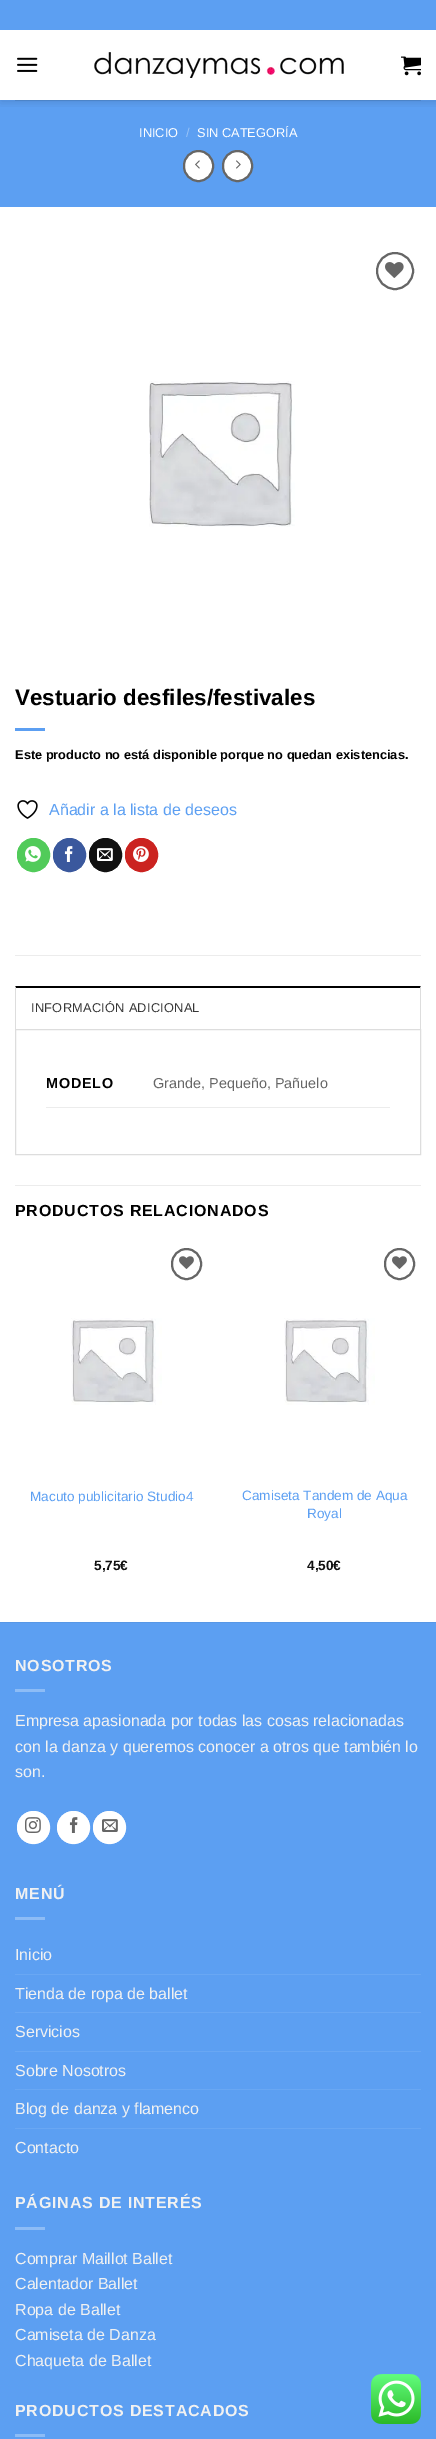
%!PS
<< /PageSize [436 2439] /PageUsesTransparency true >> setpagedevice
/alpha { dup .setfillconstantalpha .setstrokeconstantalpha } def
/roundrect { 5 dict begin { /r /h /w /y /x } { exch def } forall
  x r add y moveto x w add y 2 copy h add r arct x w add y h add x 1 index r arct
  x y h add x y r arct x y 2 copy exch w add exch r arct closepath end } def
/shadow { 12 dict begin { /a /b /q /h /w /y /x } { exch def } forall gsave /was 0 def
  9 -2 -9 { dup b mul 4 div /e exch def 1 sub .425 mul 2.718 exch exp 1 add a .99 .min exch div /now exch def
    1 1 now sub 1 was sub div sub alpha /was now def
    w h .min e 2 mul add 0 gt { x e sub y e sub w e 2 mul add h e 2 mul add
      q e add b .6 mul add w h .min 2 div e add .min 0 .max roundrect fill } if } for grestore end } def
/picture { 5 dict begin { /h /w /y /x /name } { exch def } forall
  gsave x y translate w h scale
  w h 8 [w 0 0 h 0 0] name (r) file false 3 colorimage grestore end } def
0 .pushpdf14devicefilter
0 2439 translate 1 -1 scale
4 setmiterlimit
1 setgray
0 0 436 2439 rectfill
0.361 0.624 0.949 setrgbcolor
0 100 436 107 rectfill
gsave
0 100 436 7 rectclip
0 setgray
1 1 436 100 0 5 0.15 shadow
grestore
0 0 436 30 rectfill
(img1.rgb) 17 57 21 15 picture
(img2.rgb) 94 52 250 26 picture
(img3.rgb) 401 56 20 20 picture
0.298 0.518 0.784 setrgbcolor
15 100 406 1 rectfill
/LiberationSans-Regular [12.8 0 0 -12.8 0 0] selectfont
1 setgray
139 137 moveto (INICIO) show
0.584 0.757 0.969 setrgbcolor
186 137 moveto (/) show
1 setgray
197 137 moveto (SIN CATEGORÍA) show
184 151 29 30 14.5 roundrect gsave fill grestore
0.4 setgray
2 setlinewidth
stroke
(img4.rgb) 195 160 5 9 picture
1 setgray
223 151 29 30 14.5 roundrect gsave fill grestore
0.4 setgray
stroke
(img5.rgb) 236 160 5 9 picture
newpath 395 271 18 0 360 arc closepath stroke
(img6.rgb) 385 262 19 16 picture
(img7.rgb) 149 381 146 146 picture
/LiberationSans-Bold [22.4 0 0 -22.4 0 0] selectfont
0 setgray
15 705 moveto (Vestuario desfiles/festivales) show
0.361 0.624 0.949 setrgbcolor
15 728 30 3 rectfill
/LiberationSans-Bold [12.8 0 0 -12.8 0 0] selectfont
0 setgray
15 759 moveto (Este producto no está disponible porque no quedan existencias.) show
(img8.rgb) 17 800 21 19 picture
/LiberationSans-Regular [16 0 0 -16 0 0] selectfont
0.361 0.624 0.949 setrgbcolor
49 815 moveto (Añadir a la lista de deseos) show
0.318 0.796 0.353 setrgbcolor
17.5 838.5 32 33 16 roundrect gsave fill grestore
1 setlinewidth
stroke
(img9.rgb) 25 846 16 16 picture
0.227 0.345 0.616 setrgbcolor
53.5 838.5 32 33 16 roundrect gsave fill grestore
stroke
(img10.rgb) 64 846 9 16 picture
0.067 setgray
89.5 838.5 32 33 16 roundrect gsave fill grestore
stroke
(img11.rgb) 97 848 16 13 picture
0.796 0.137 0.125 setrgbcolor
125.5 838.5 32 33 16 roundrect gsave fill grestore
stroke
(img12.rgb) 133 846 16 16 picture
0.925 setgray
15 955 406 1 rectfill
0 setgray
newpath 15 986 moveto 421 986 lineto 420 988 lineto 16 988 lineto closepath fill
0.867 setgray
newpath 421 986 moveto 421 1029 lineto 420 1029 lineto 420 988 lineto closepath fill
newpath 15 1029 moveto 15 986 lineto 16 988 lineto 16 1029 lineto closepath fill
/LiberationSans-Regular [12.8 0 0 -12.8 0 0] selectfont
0.212 setgray
31 1012 moveto 0.25 0 (INFORMACIÓN ADICIONAL) ashow
0.867 setgray
15.5 1029.5 405 125 rectstroke
0.925 setgray
46 1107 344 1 rectfill
/LiberationSans-Bold [14.4 0 0 -14.4 0 0] selectfont
0 setgray
46 1088 moveto 0.75 0 (MODELO) ashow
/LiberationSans-Regular [14.4 0 0 -14.4 0 0] selectfont
0.4 setgray
153 1088 moveto (Grande, Pequeño, Pañuelo) show
0.925 setgray
15 1185 406 1 rectfill
/LiberationSans-Bold [16 0 0 -16 0 0] selectfont
0 setgray
15 1216 moveto 0.8 0 (PRODUCTOS RELACIONADOS) ashow
0.4 setgray
2 setlinewidth
172 1249 29 30 14.5 roundrect stroke
(img13.rgb) 179 1256 15 13 picture
(img14.rgb) 71 1318 91 87 picture
/LiberationSans-Regular [13.6 0 0 -13.6 0 0] selectfont
0.361 0.624 0.949 setrgbcolor
30 1501 moveto (Macuto publicitario Studio4) show
/LiberationSans-Bold [13.6 0 0 -13.6 0 0] selectfont
0.067 setgray
94 1570 moveto (5,75€) show
0.4 setgray
385 1249 29 30 14.5 roundrect stroke
(img13.rgb) 392 1256 15 13 picture
(img14.rgb) 284 1318 91 87 picture
/LiberationSans-Regular [13.6 0 0 -13.6 0 0] selectfont
0.361 0.624 0.949 setrgbcolor
242 1500 moveto (Camiseta Tandem de Aqua) show
307 1518 moveto (Royal) show
/LiberationSans-Bold [13.6 0 0 -13.6 0 0] selectfont
0.067 setgray
307 1570 moveto (4,50€) show
0.361 0.624 0.949 setrgbcolor
0 1623 436 816 rectfill
0.341 0.592 0.902 setrgbcolor
0 1622 436 1 rectfill
/LiberationSans-Bold [16 0 0 -16 0 0] selectfont
0.945 setgray
15 1671 moveto 0.8 0 (NOSOTROS) ashow
0.553 0.737 0.965 setrgbcolor
15 1689 30 3 rectfill
/LiberationSans-Regular [16 0 0 -16 0 0] selectfont
0.945 setgray
15 1726 moveto (Empresa apasionada por todas las cosas relacionadas) show
15 1752 moveto (con la danza y queremos conocer a otros que también lo) show
15 1777 moveto (son.) show
1 setgray
newpath 33.5 1827.5 16.5 0 360 arc closepath fill
0.5 alpha
newpath 33.5 1827.5 15.5 0 360 arc closepath stroke
1 alpha
(img15.rgb) 25 1817 16 16 picture
newpath 73.5 1827.5 16.5 0 360 arc closepath fill
0.5 alpha
newpath 73.5 1827.5 15.5 0 360 arc closepath stroke
1 alpha
(img16.rgb) 69 1817 9 16 picture
newpath 109.5 1827.5 16.5 0 360 arc closepath fill
0.5 alpha
newpath 109.5 1827.5 15.5 0 360 arc closepath stroke
1 alpha
(img17.rgb) 102 1819 16 13 picture
/LiberationSans-Bold [16 0 0 -16 0 0] selectfont
0.945 setgray
15 1899 moveto 0.8 0 (MENÚ) ashow
0.553 0.737 0.965 setrgbcolor
15 1917 30 3 rectfill
/LiberationSans-Regular [16 0 0 -16 0 0] selectfont
0.945 setgray
15 1960 moveto (Inicio) show
0.412 0.655 0.953 setrgbcolor
15 1974 406 1 rectfill
0.945 setgray
15 1999 moveto (Tienda de ropa de ballet) show
0.412 0.655 0.953 setrgbcolor
15 2012 406 1 rectfill
0.945 setgray
15 2037 moveto (Servicios) show
0.412 0.655 0.953 setrgbcolor
15 2051 406 1 rectfill
0.945 setgray
15 2076 moveto (Sobre Nosotros) show
0.412 0.655 0.953 setrgbcolor
15 2089 406 1 rectfill
0.945 setgray
15 2114 moveto (Blog de danza y flamenco) show
0.412 0.655 0.953 setrgbcolor
15 2128 406 1 rectfill
0.945 setgray
15 2153 moveto (Contacto) show
/LiberationSans-Bold [16 0 0 -16 0 0] selectfont
15 2208 moveto 0.8 0 (PÁGINAS DE INTERÉS) ashow
0.553 0.737 0.965 setrgbcolor
15 2227 30 3 rectfill
/LiberationSans-Regular [16 0 0 -16 0 0] selectfont
0.945 setgray
15 2264 moveto (Comprar Maillot Ballet) show
15 2289 moveto (Calentador Ballet) show
15 2315 moveto (Ropa de Ballet) show
15 2340 moveto (Camiseta de Danza) show
15 2366 moveto (Chaqueta de Ballet) show
/LiberationSans-Bold [16 0 0 -16 0 0] selectfont
15 2416 moveto 0.8 0 (PRODUCTOS DESTACADOS) ashow
0.553 0.737 0.965 setrgbcolor
15 2434 30 3 rectfill
(img18.rgb) 371 2374 50 50 picture
.poppdf14devicefilter showpage
